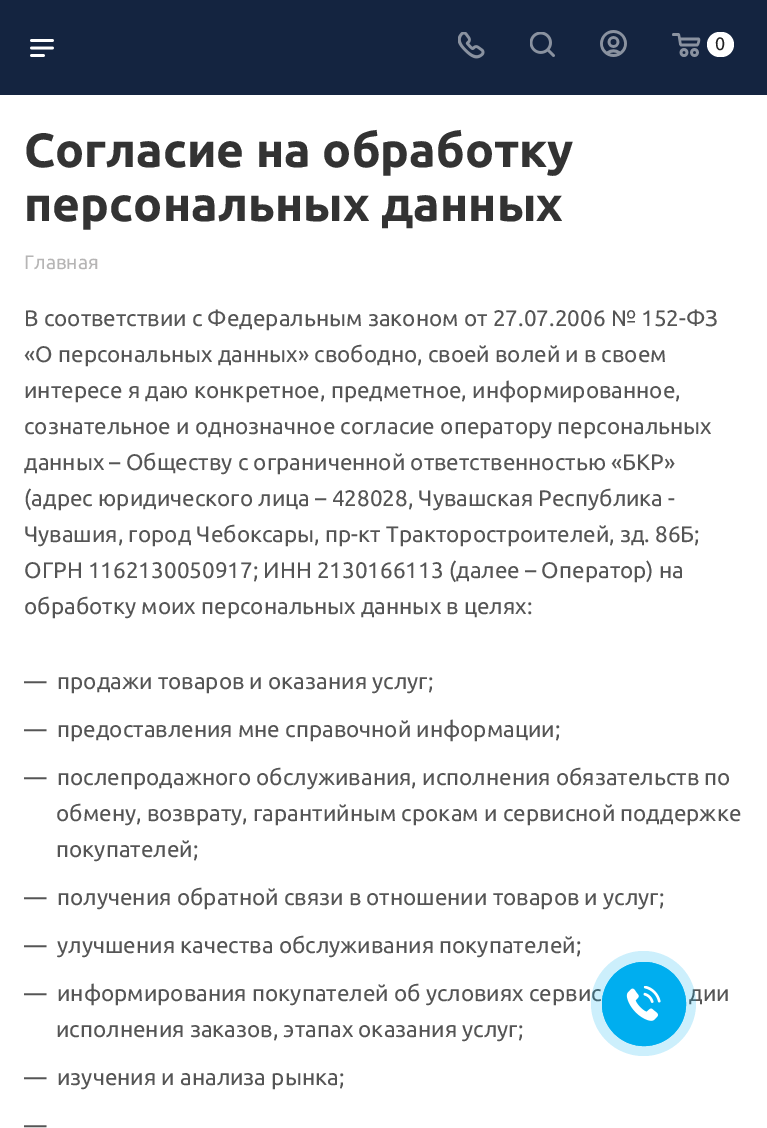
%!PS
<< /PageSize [767 1128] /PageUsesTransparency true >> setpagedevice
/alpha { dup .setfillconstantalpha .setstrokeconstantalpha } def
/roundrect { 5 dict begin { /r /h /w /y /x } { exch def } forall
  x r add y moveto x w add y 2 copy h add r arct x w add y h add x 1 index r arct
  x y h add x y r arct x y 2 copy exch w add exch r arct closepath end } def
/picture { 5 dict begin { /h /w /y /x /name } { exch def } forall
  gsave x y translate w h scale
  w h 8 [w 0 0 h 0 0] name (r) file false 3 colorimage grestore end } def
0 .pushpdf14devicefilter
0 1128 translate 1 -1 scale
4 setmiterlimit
1 setgray
0 0 767 1128 rectfill
0.078 0.141 0.251 setrgbcolor
0 0 767 95 rectfill
(img1.rgb) 30 39 24 18 picture
(img2.rgb) 458 32 27 27 picture
(img3.rgb) 530 32 25 25 picture
(img4.rgb) 600 30 27 27 picture
(img5.rgb) 672 33 29 24 picture
1 setgray
707 32 27 25 12.5 roundrect fill
/Ubuntu-Regular [18 0 0 -18 0 0] selectfont
0.133 setgray
715 50 moveto (0) show
/Ubuntu-Bold [48 0 0 -48 0 0] selectfont
0.2 setgray
24 167 moveto (Согласие на обработку) show
24 221 moveto (персональных данных) show
/Ubuntu-Regular [19.5 0 0 -19.5 0 0] selectfont
0.714 0.71 0.71 setrgbcolor
24 269 moveto (Главная) show
/Ubuntu-Regular [22.5 0 0 -22.5 0 0] selectfont
0.333 setgray
24 326 moveto (В соответствии с Федеральным законом от 27.07.2006 № 152-ФЗ) show
24 362 moveto («О персональных данных» свободно, своей волей и в своем) show
24 398 moveto (интересе я даю конкретное, предметное, информированное,) show
24 434 moveto (сознательное и однозначное согласие оператору персональных) show
24 470 moveto (данных – Обществу с ограниченной ответственностью «БКР») show
24 506 moveto (\(адрес юридического лица – 428028, Чувашская Республика -) show
24 542 moveto (Чувашия, город Чебоксары, пр-кт Тракторостроителей, зд. 86Б;) show
24 578 moveto (ОГРН 1162130050917; ИНН 2130166113 \(далее – Оператор\) на) show
24 614 moveto (обработку моих персональных данных в целях:) show
24 689 moveto (—) show
57 689 moveto (продажи товаров и оказания услуг;) show
24 737 moveto (—) show
57 737 moveto (предоставления мне справочной информации;) show
24 785 moveto (—) show
57 785 moveto (послепродажного обслуживания, исполнения обязательств по) show
56 821 moveto (обмену, возврату, гарантийным срокам и сервисной поддержке) show
56 857 moveto (покупателей;) show
24 905 moveto (—) show
57 905 moveto (получения обратной связи в отношении товаров и услуг;) show
24 953 moveto (—) show
57 953 moveto (улучшения качества обслуживания покупателей;) show
24 1001 moveto (—) show
57 1001 moveto (информирования покупателей об условиях сервис) show
689 1001 moveto (дии) show
56 1037 moveto (исполнения заказов, этапах оказания услуг;) show
24 1085 moveto (—) show
57 1085 moveto (изучения и анализа рынка;) show
24 1133 moveto (—) show
0.2 alpha
0 0.682 0.937 setrgbcolor
newpath 643.5 1003.5 52.5 0 360 arc closepath fill
1 alpha
newpath 644 1004 41.5 0 360 arc closepath stroke
newpath 644 1004 42 0 360 arc closepath fill
(img6.rgb) 626 986 35 35 picture
.poppdf14devicefilter showpage
